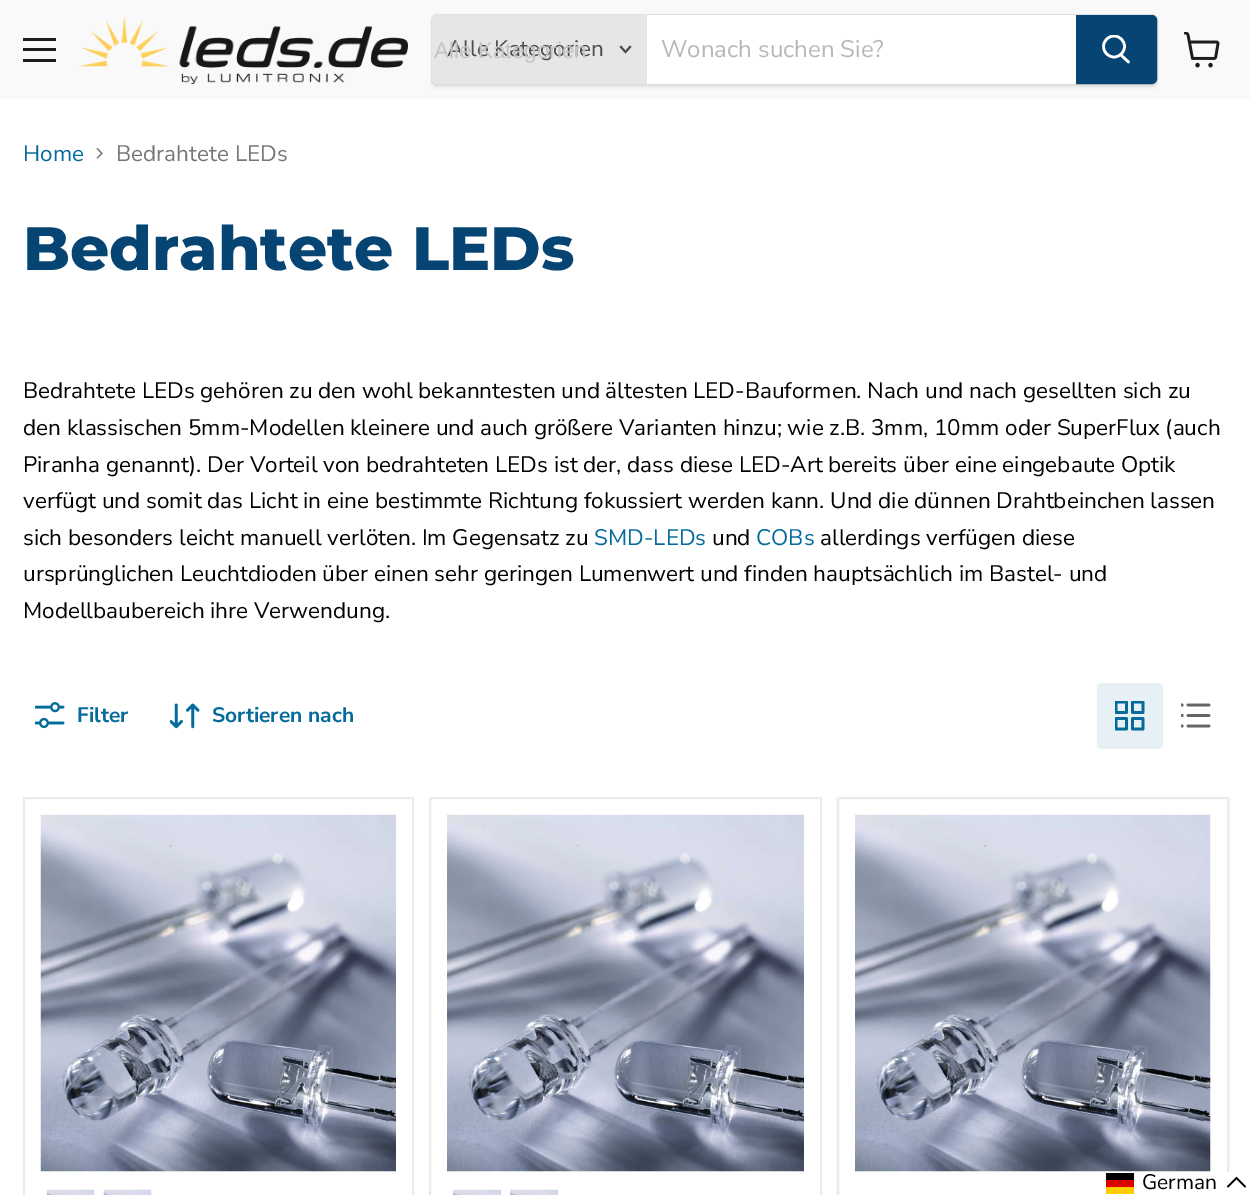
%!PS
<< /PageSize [1250 1195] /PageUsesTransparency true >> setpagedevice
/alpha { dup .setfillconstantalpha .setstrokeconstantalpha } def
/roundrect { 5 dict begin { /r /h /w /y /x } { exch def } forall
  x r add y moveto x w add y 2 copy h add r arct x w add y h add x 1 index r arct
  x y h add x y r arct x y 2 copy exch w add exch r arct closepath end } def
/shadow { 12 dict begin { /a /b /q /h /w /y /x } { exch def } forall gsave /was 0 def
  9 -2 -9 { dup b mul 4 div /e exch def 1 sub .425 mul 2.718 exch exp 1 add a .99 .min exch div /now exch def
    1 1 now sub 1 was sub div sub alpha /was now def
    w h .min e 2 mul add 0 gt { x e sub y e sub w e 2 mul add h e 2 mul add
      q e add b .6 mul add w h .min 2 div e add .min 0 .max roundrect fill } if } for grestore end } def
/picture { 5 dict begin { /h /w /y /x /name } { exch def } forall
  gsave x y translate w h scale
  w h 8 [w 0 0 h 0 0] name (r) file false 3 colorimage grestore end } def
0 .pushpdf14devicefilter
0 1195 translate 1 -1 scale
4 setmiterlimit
1 setgray
0 0 1250 1195 rectfill
0.976 setgray
0 0 1250 99 rectfill
0.114 setgray
23 38 33 3 rectfill
23 48 33 3 rectfill
23 59 33 3 rectfill
(img1.rgb) 79 16 329 68 picture
gsave
newpath 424 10 moveto 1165 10 lineto 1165 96 lineto 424 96 lineto closepath 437 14 moveto 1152 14 lineto 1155.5 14 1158 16.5 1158 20 curveto 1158 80 lineto 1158 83.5 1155.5 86 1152 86 curveto 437 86 lineto 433.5 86 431 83.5 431 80 curveto 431 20 lineto 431 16.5 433.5 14 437 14 curveto closepath eoclip newpath
0.502 setgray
431 17 727 72 6 2 0.11 shadow
grestore
0.2 alpha
0.502 setgray
2 setlinewidth
432 15 725 70 5 roundrect stroke
1 alpha
0.902 setgray
newpath 437 15 moveto 647 15 lineto 647 84 lineto 437 84 lineto 434 84 432 82 432 79 curveto 432 20 lineto 432 17 434 15 437 15 curveto closepath fill
/NunitoSans-Regular [22.5 0 0 -22.5 0 0] selectfont
0.302 setgray
447 56 moveto (Alle Kategorien) show
/LiberationSans-Regular [22.5 0 0 -22.5 0 0] selectfont
0.765 setgray
434 58 moveto (Alle Kategorien) show
0.302 setgray
1.9 setlinewidth
2 setlinecap
newpath 625.5 52 moveto 630 47 lineto 625.5 52 moveto 621 47 lineto stroke
1 setgray
647 15 429 69 rectfill
/NunitoSans-Regular [24 0 0 -24 0 0] selectfont
0.722 setgray
661 57 moveto (Wonach suchen Sie?) show
0.024 0.267 0.455 setrgbcolor
newpath 1077 16 moveto 1152 16 lineto 1154 16 1156 18 1156 20 curveto 1156 79 lineto 1156 81 1154 83 1152 83 curveto 1077 83 lineto closepath gsave fill grestore
2 setlinewidth
0 setlinecap
stroke
1 setgray
2.6 setlinewidth
1 setlinecap
newpath 1128.5 62 moveto 1121 55 lineto stroke
gsave
1101 35 30 31 rectclip
0 setlinecap
newpath 1114 46.5 10.5 0 360 arc closepath stroke
grestore
(img2.rgb) 1184 32 36 36 picture
/NunitoSans-Regular [22.5 0 0 -22.5 0 0] selectfont
0.016 0.42 0.608 setrgbcolor
23 161 moveto (Home) show
(img3.rgb) 96 148 7 11 picture
0.467 setgray
116 161 moveto (Bedrahtete LEDs) show
/Montserrat-ExtraBold [61.25 0 0 -61.25 0 0] selectfont
0.024 0.267 0.455 setrgbcolor
23 270 moveto (Bedrahtete LEDs) show
/NunitoSans-Regular [22.5 0 0 -22.5 0 0] selectfont
0 setgray
23 398 moveto (Bedrahtete LEDs gehören zu den wohl bekanntesten und ältesten LED-Bauformen. Nach und nach gesellten sich zu) show
23 435 moveto (den klassischen 5mm-Modellen kleinere und auch größere Varianten hinzu; wie z.B. 3mm, 10mm oder SuperFlux \(auch) show
23 472 moveto (Piranha genannt\). Der Vorteil von bedrahteten LEDs ist der, dass diese LED-Art bereits über eine eingebaute Optik) show
23 508 moveto (verfügt und somit das Licht in eine bestimmte Richtung fokussiert werden kann. Und die dünnen Drahtbeinchen lassen) show
23 545 moveto (sich besonders leicht manuell verlöten. Im Gegensatz zu) show
0.016 0.42 0.608 setrgbcolor
594 545 moveto (SMD-LEDs) show
0 setgray
712 545 moveto (und) show
0.016 0.42 0.608 setrgbcolor
756 545 moveto (COBs) show
0 setgray
820 545 moveto (allerdings verfügen diese) show
23 581 moveto (ursprünglichen Leuchtdioden über einen sehr geringen Lumenwert und finden hauptsächlich im Bastel- und) show
23 618 moveto (Modellbaubereich ihre Verwendung.) show
(img4.rgb) 35 702 30 27 picture
/NunitoSans-Bold [21 0 0 -21 0 0] selectfont
0.016 0.42 0.608 setrgbcolor
77 722 moveto (Filter) show
(img5.rgb) 170 703 30 26 picture
212 722 moveto (Sortieren nach) show
0.902 0.941 0.961 setrgbcolor
1097 683 66 66 5 roundrect fill
(img6.rgb) 1115 701 30 30 picture
(img7.rgb) 1181 703 30 25 picture
0.922 setgray
2 setlinewidth
0 setlinecap
24 798 389 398 rectstroke
(img8.rgb) 40 814 356 358 picture
(img9.rgb) 46 1189 49 6 picture
(img9.rgb) 103 1189 49 6 picture
430 798 391 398 rectstroke
(img10.rgb) 447 814 357 358 picture
(img11.rgb) 453 1189 48 6 picture
(img12.rgb) 510 1189 48 6 picture
0.502 setgray
837 798 392 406 0 3 0.11 shadow
1 setgray
newpath 838 798 moveto 1228 798 lineto 1228 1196 lineto 838 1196 lineto closepath gsave fill grestore
0.922 setgray
stroke
(img13.rgb) 855 814 356 358 picture
1 setgray
1227 1172 5 23 rectfill
1 0.808 0 setrgbcolor
1106 1187 28 7 rectfill
0 setgray
1106 1173 28 7 rectfill
0.867 0 0 setrgbcolor
1106 1180 28 7 rectfill
/NunitoSans-Regular [21 0 0 -21 0 0] selectfont
0 setgray
1142 1189 moveto (German) show
1.5 setlinewidth
newpath 1245.5 1187 moveto 1236.5 1178 lineto 1227.5 1187 lineto stroke
.poppdf14devicefilter showpage
